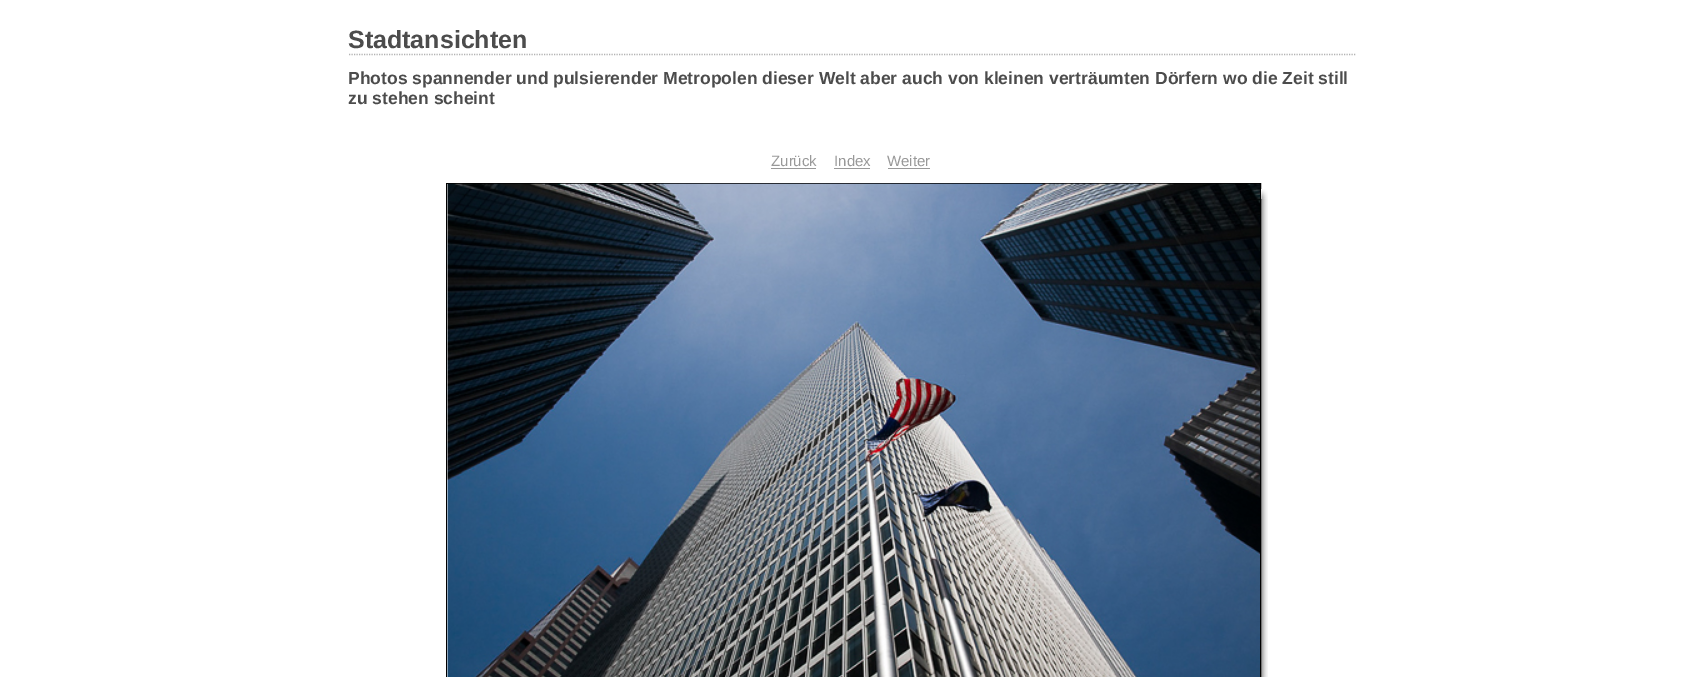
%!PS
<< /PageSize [1703 677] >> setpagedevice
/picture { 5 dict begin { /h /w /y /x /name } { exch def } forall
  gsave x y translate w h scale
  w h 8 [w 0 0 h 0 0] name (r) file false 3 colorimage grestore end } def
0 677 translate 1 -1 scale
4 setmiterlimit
1 setgray
0 0 1703 677 rectfill
0.702 setgray
1.2 setlinewidth
[1.25 1.25] 0 setdash
newpath 349 54.5 moveto 1356 54.5 lineto stroke
/LiberationSans-Bold [25 0 0 -25 0 0] selectfont
0.298 setgray
348 48 moveto (Stadtansichten) show
/LiberationSans-Bold [17.5 0 0 -17.5 0 0] selectfont
348 84 moveto (Photos spannender und pulsierender Metropolen dieser Welt aber auch von kleinen verträumten Dörfern wo die Zeit still) show
348 104 moveto (zu stehen scheint) show
/LiberationSans-Regular [15 0 0 -15 0 0] selectfont
0.6 setgray
771 166 moveto (Zurück) show
771 168 45 1 rectfill
834 166 moveto (Index) show
834 168 36 1 rectfill
887 166 moveto (Weiter) show
888 168 42 1 rectfill
(img1.rgb) 1261 198 7 479 picture
0 setgray
1 setlinewidth
[] 0 setdash
446.5 183.5 814 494 rectstroke
(img2.rgb) 447 183 813 494 picture
(img3.rgb) 1261 189 7 10 picture
showpage
